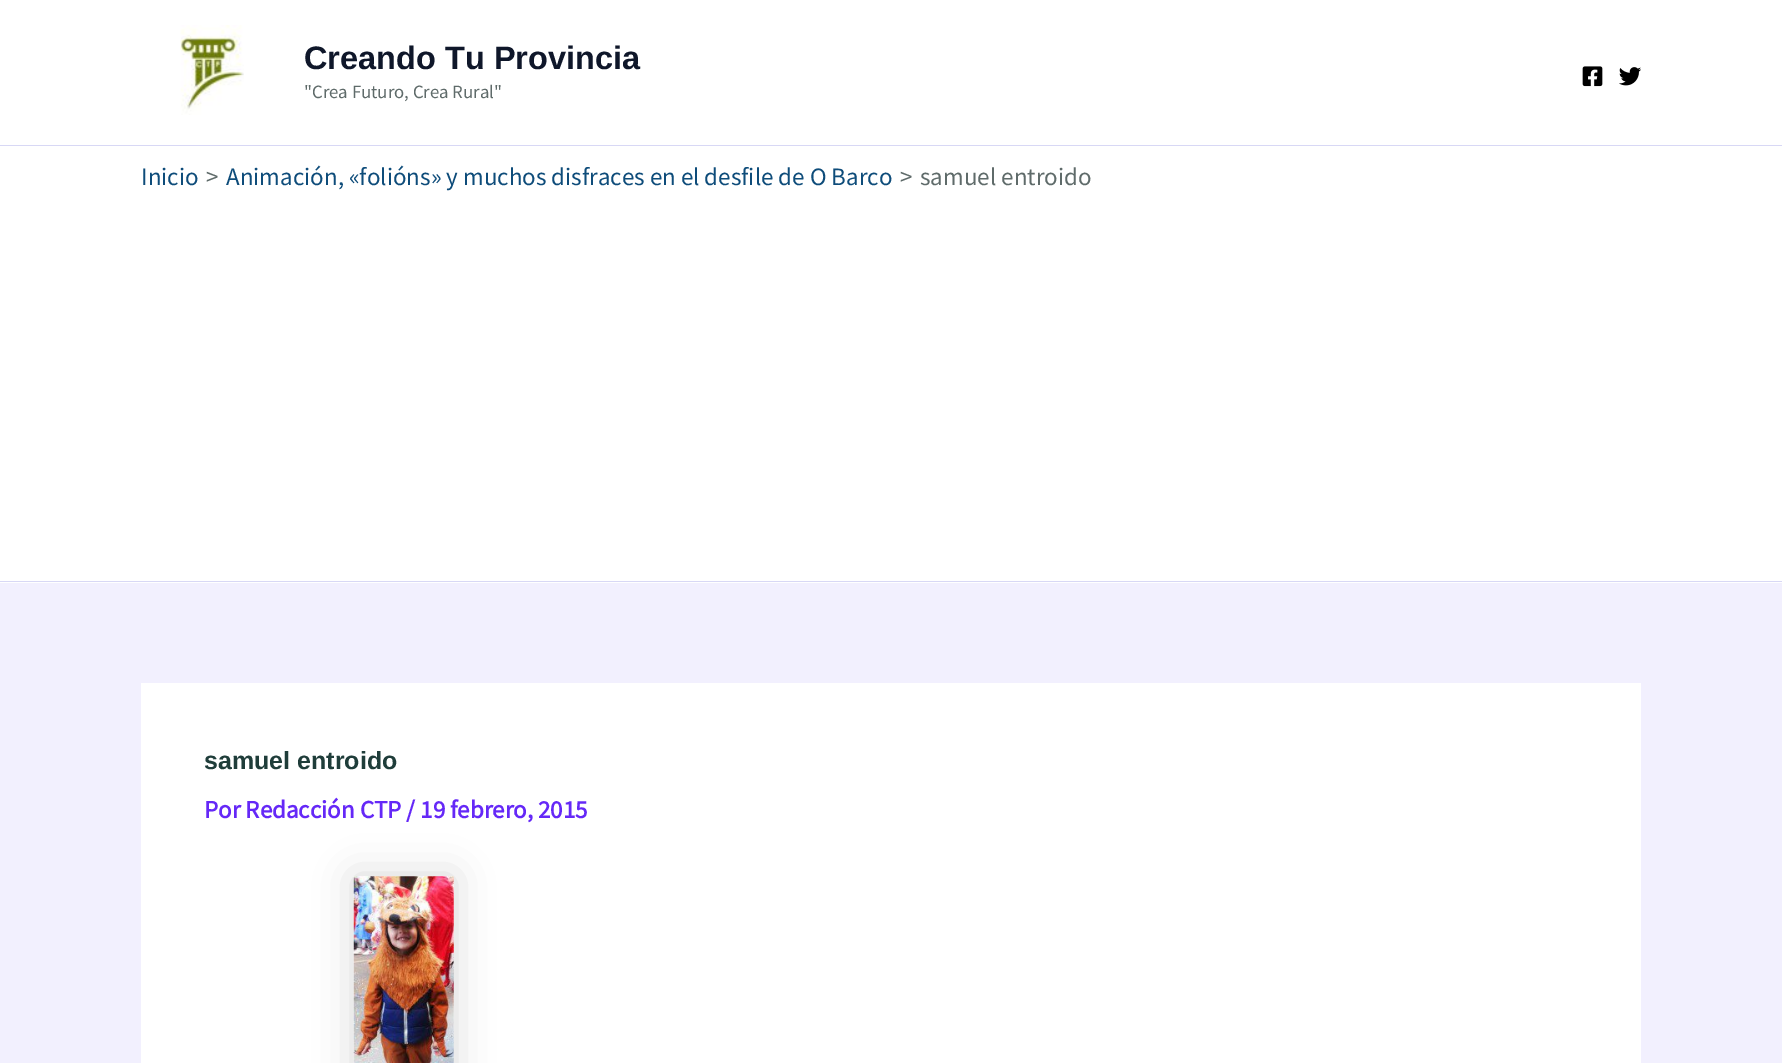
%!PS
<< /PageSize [1782 1063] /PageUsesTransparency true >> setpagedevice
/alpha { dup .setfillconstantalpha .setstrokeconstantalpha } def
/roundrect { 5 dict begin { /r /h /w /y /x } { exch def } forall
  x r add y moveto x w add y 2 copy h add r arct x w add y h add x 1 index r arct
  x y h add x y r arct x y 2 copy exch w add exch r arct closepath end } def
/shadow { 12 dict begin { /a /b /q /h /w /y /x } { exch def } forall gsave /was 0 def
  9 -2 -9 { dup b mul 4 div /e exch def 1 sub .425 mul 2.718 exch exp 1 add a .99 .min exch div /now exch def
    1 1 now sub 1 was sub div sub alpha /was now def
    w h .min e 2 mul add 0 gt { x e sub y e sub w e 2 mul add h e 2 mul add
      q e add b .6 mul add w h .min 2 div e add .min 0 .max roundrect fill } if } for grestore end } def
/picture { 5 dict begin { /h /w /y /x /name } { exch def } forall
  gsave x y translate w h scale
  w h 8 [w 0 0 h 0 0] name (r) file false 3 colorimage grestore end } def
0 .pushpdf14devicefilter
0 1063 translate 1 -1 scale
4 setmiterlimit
0.949 0.941 0.996 setrgbcolor
0 0 1782 1063 rectfill
1 setgray
0 0 1782 145 rectfill
0.847 0.847 0.961 setrgbcolor
0 145 1782 1 rectfill
(img1.rgb) 180 25 64 90 picture
/LiberationSans-Bold [32.5 0 0 -32.5 0 0] selectfont
0.059 0.09 0.165 setrgbcolor
304 69 moveto (Creando Tu Provincia) show
/SourceSansPro-Regular [18.75 0 0 -18.75 0 0] selectfont
0.373 0.42 0.416 setrgbcolor
304 98 moveto ("Crea Futuro, Crea Rural") show
(img2.rgb) 1582 66 21 21 picture
(img3.rgb) 1619 67 22 19 picture
1 setgray
0 146 1782 437 rectfill
0.847 0.847 0.961 setrgbcolor
0 581 1782 1 rectfill
/SourceSansPro-Regular [25 0 0 -25 0 0] selectfont
0.055 0.298 0.478 setrgbcolor
141 185 moveto (Inicio) show
0.373 0.42 0.416 setrgbcolor
206 185 moveto (>) show
0.055 0.298 0.478 setrgbcolor
226 185 moveto (Animación, «folións» y muchos disfraces en el desfile de O Barco) show
0.373 0.42 0.416 setrgbcolor
900 185 moveto (>) show
920 185 moveto (samuel entroido) show
1 setgray
141 683 1500 380 rectfill
/LiberationSans-Bold [25 0 0 -25 0 0] selectfont
0.122 0.239 0.227 setrgbcolor
204 769 moveto (samuel entroido) show
/SourceSansPro-Bold [25 0 0 -25 0 0] selectfont
0.396 0.157 0.969 setrgbcolor
204 818 moveto (Por Redacción CTP / 19 febrero, 2015) show
0 setgray
354 876 100 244 0 19 0.15 shadow
(img4.rgb) 353 876 101 187 picture
.poppdf14devicefilter showpage
